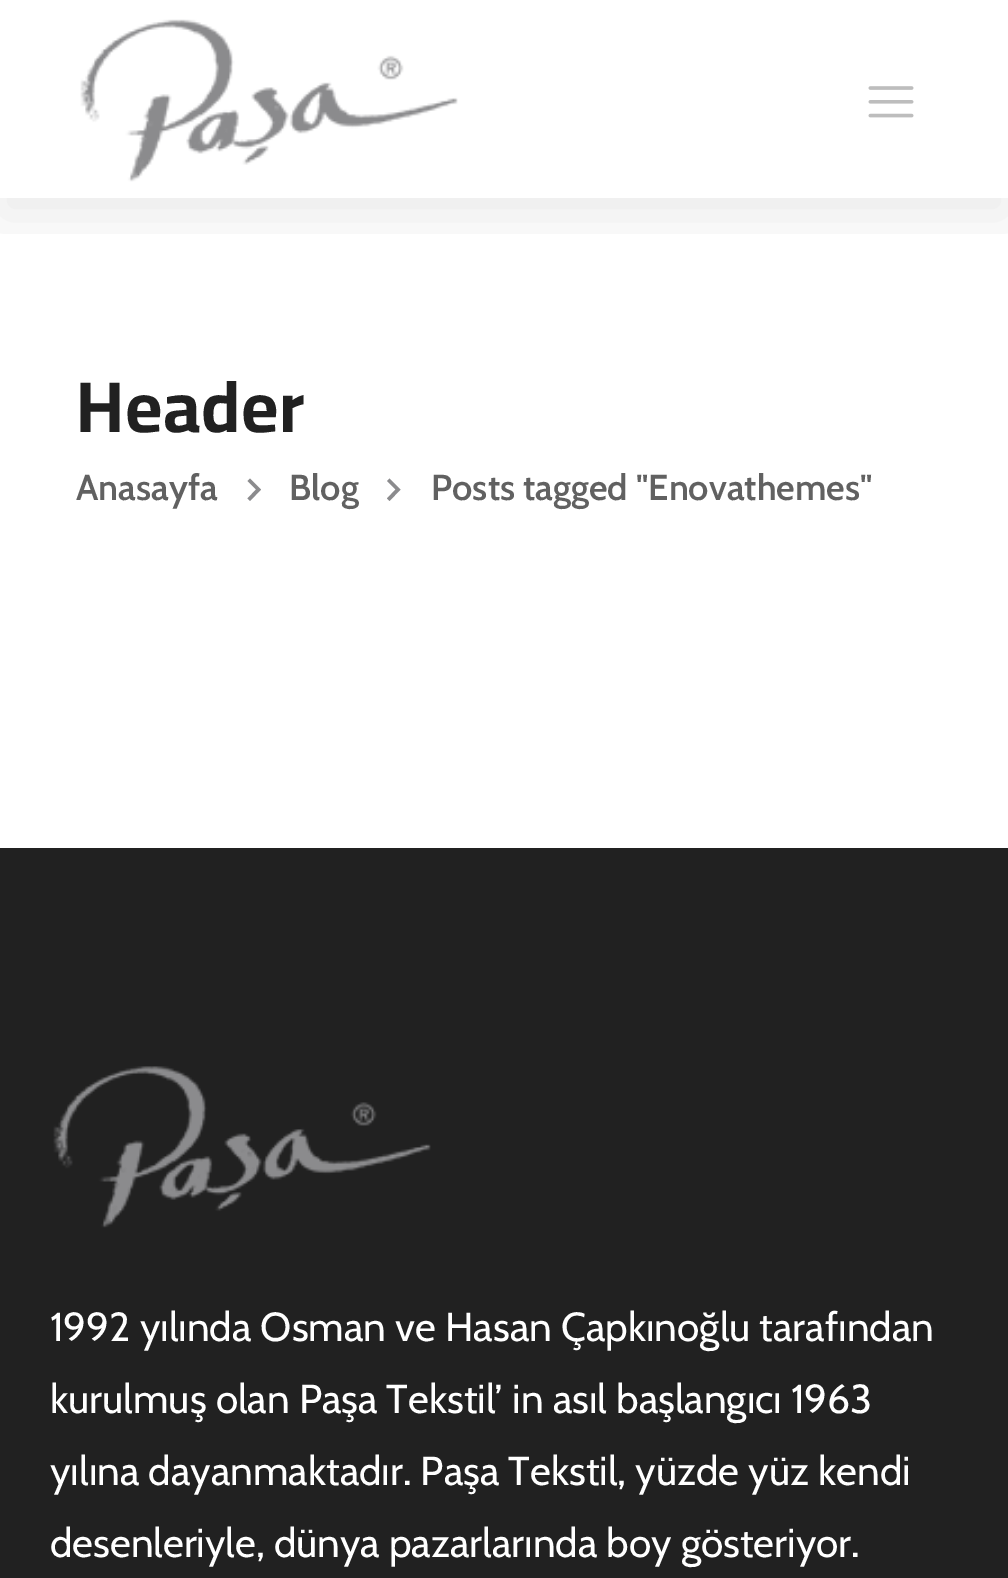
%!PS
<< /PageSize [1008 1578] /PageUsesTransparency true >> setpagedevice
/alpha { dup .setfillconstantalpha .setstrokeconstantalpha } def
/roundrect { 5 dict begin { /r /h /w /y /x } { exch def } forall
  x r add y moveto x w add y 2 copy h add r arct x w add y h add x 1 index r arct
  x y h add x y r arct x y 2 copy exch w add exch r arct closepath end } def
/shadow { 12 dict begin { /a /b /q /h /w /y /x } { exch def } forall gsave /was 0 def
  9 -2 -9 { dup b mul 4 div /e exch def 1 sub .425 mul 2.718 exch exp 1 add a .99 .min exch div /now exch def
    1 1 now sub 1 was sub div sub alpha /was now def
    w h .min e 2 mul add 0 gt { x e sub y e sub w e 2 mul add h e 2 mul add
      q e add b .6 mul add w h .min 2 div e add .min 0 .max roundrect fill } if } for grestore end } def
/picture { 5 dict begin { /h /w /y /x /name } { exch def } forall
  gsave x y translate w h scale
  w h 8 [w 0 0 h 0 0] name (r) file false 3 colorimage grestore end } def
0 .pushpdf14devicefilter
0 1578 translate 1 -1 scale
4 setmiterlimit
1 setgray
0 0 1008 1578 rectfill
gsave
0 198 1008 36 rectclip
0 setgray
0 18 1008 198 0 27 0.08 shadow
grestore
(img1.rgb) 80 19 378 163 picture
(img2.rgb) 868 86 46 32 picture
/Cairo-Bold [72 0 0 -72 0 0] selectfont
0.129 setgray
76 432 moveto 0.5 0 (Header) ashow
/Cabin-SemiBold [36 0 0 -36 0 0] selectfont
0.38 setgray
76 500 moveto (Anasayfa) show
0.545 0.545 0.553 setrgbcolor
newpath 250 478.5 moveto 247.5 481 lineto 256 489.5 lineto 247.5 498.5 lineto 250 501 lineto 261 489.5 lineto closepath fill
0.38 setgray
289 500 moveto (Blog) show
0.545 0.545 0.553 setrgbcolor
newpath 389.5 478.5 moveto 387 481 lineto 395.5 489.5 lineto 387 498.5 lineto 389.5 501 lineto 400.5 489.5 lineto closepath fill
0.38 setgray
431 500 moveto (Posts tagged "Enovathemes") show
0.129 setgray
0 848 1008 730 rectfill
(img3.rgb) 53 1066 378 162 picture
/Cabin-Regular [40.5 0 0 -40.5 0 0] selectfont
1 setgray
50 1341 moveto (1992 yılında Osman ve Hasan Çapkınoğlu tarafından) show
50 1413 moveto (kurulmuş olan Paşa Tekstil’ in asıl başlangıcı 1963) show
50 1485 moveto (yılına dayanmaktadır. Paşa Tekstil, yüzde yüz kendi) show
50 1557 moveto (desenleriyle, dünya pazarlarında boy gösteriyor.) show
.poppdf14devicefilter showpage
